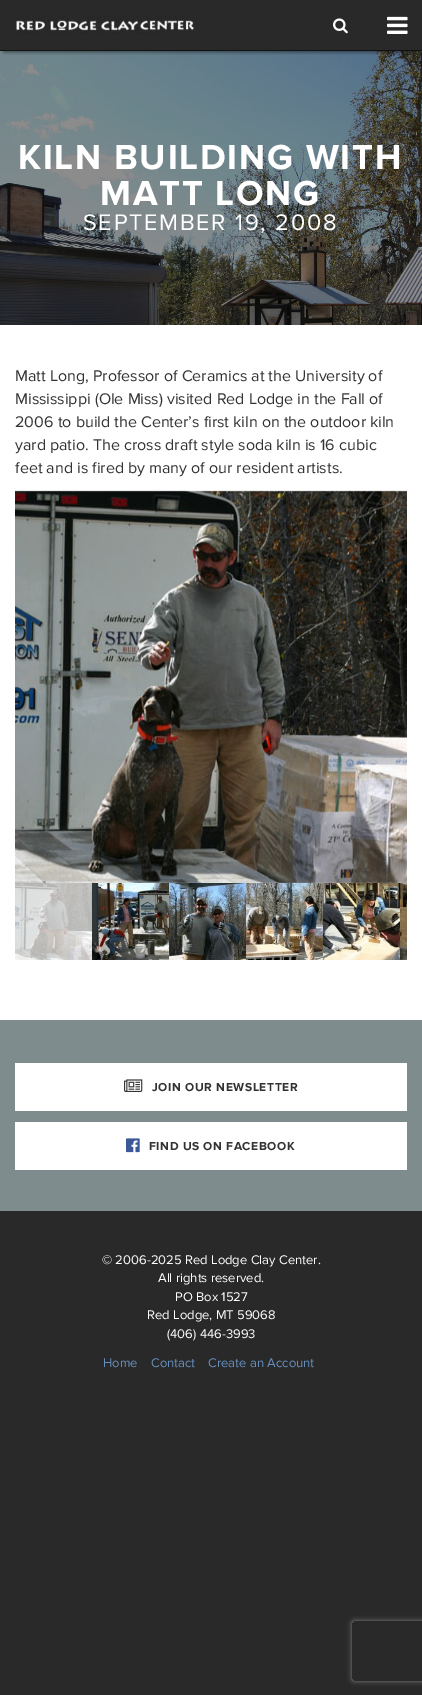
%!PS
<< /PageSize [422 1695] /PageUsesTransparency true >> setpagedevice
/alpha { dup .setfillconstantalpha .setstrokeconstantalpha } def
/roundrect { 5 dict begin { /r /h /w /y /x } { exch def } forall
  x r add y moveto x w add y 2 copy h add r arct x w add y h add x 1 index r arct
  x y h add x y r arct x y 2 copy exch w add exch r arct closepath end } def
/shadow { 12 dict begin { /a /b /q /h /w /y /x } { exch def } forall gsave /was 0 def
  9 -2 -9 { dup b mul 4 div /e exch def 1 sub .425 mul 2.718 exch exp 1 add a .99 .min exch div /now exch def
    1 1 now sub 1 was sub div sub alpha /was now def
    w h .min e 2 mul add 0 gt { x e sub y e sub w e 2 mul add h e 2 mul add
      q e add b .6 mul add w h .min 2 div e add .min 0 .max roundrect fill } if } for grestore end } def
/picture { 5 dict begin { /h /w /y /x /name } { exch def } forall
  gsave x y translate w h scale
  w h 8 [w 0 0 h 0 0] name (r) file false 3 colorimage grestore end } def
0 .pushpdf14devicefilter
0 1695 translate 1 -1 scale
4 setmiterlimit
0.161 setgray
0 0 422 1695 rectfill
(img4.rgb) 0 51 422 274 picture
gsave
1 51 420 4 rectclip
0 setgray
4 9 414 43 0 2 0.5 shadow
grestore
0.071 setgray
0 50 422 1 rectfill
(img1.rgb) 15 16 180 18 picture
(img2.rgb) 333 18 15 16 picture
(img3.rgb) 387 16 21 18 picture
/ProximaNova-Bold [36 0 0 -36 0 0] selectfont
1 setgray
18 169 moveto 1.75 0 (KILN BUILDING WITH) ashow
100 205 moveto 1.75 0 (MATT LONG) ashow
/ProximaNova-Regular [23.4 0 0 -23.4 0 0] selectfont
83 230 moveto 1.75 0 (SEPTEMBER 19, 2008) ashow
0 325 422 695 rectfill
/ProximaNova-Regular [16 0 0 -16 0 0] selectfont
0.2 setgray
15 381 moveto (Matt Long, Professor of Ceramics at the University of) show
15 404 moveto (Mississippi \(Ole Miss\) visited Red Lodge in the Fall of) show
15 427 moveto (2006 to build the Center’s first kiln on the outdoor kiln) show
15 450 moveto (yard patio. The cross draft style soda kiln is 16 cubic) show
15 473 moveto (feet and is fired by many of our resident artists.) show
(img5.rgb) 15 490 392 393 picture
(img6.rgb) 15 883 77 77 picture
(img7.rgb) 92 883 77 77 picture
(img8.rgb) 169 883 77 77 picture
(img9.rgb) 246 883 77 77 picture
(img10.rgb) 323 883 77 77 picture
(img11.rgb) 400 883 7 77 picture
0.498 0.549 0.553 setrgbcolor
0 1020 422 191 rectfill
1 setgray
15 1063 392 48 rectfill
(img12.rgb) 124 1079 19 13 picture
/ProximaNova-Bold [12 0 0 -12 0 0] selectfont
0.2 setgray
152 1091 moveto 0.6 0 (JOIN OUR NEWSLETTER) ashow
1 setgray
15 1122 392 48 rectfill
(img13.rgb) 126 1138 14 15 picture
0.2 setgray
149 1150 moveto 0.6 0 (FIND US ON FACEBOOK) ashow
/ProximaNova-Regular [13 0 0 -13 0 0] selectfont
1 setgray
102 1264 moveto (© 2006-2025 Red Lodge Clay Center.) show
158 1282 moveto (All rights reserved.) show
175 1301 moveto (PO Box 1527) show
147 1319 moveto (Red Lodge, MT 59068) show
167 1338 moveto (\(406\) 446-3993) show
0.4 0.557 0.737 setrgbcolor
103 1367 moveto (Home) show
151 1367 moveto (Contact) show
208 1367 moveto (Create an Account) show
gsave
newpath 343 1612 moveto 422 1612 lineto 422 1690 lineto 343 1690 lineto closepath 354 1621 moveto 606 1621 lineto 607 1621 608 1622 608 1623 curveto 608 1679 lineto 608 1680 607 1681 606 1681 curveto 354 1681 lineto 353 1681 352 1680 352 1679 curveto 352 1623 lineto 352 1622 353 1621 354 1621 curveto closepath eoclip newpath
0.502 setgray
352 1621 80 60 2 2.5 1 shadow
grestore
.poppdf14devicefilter showpage
